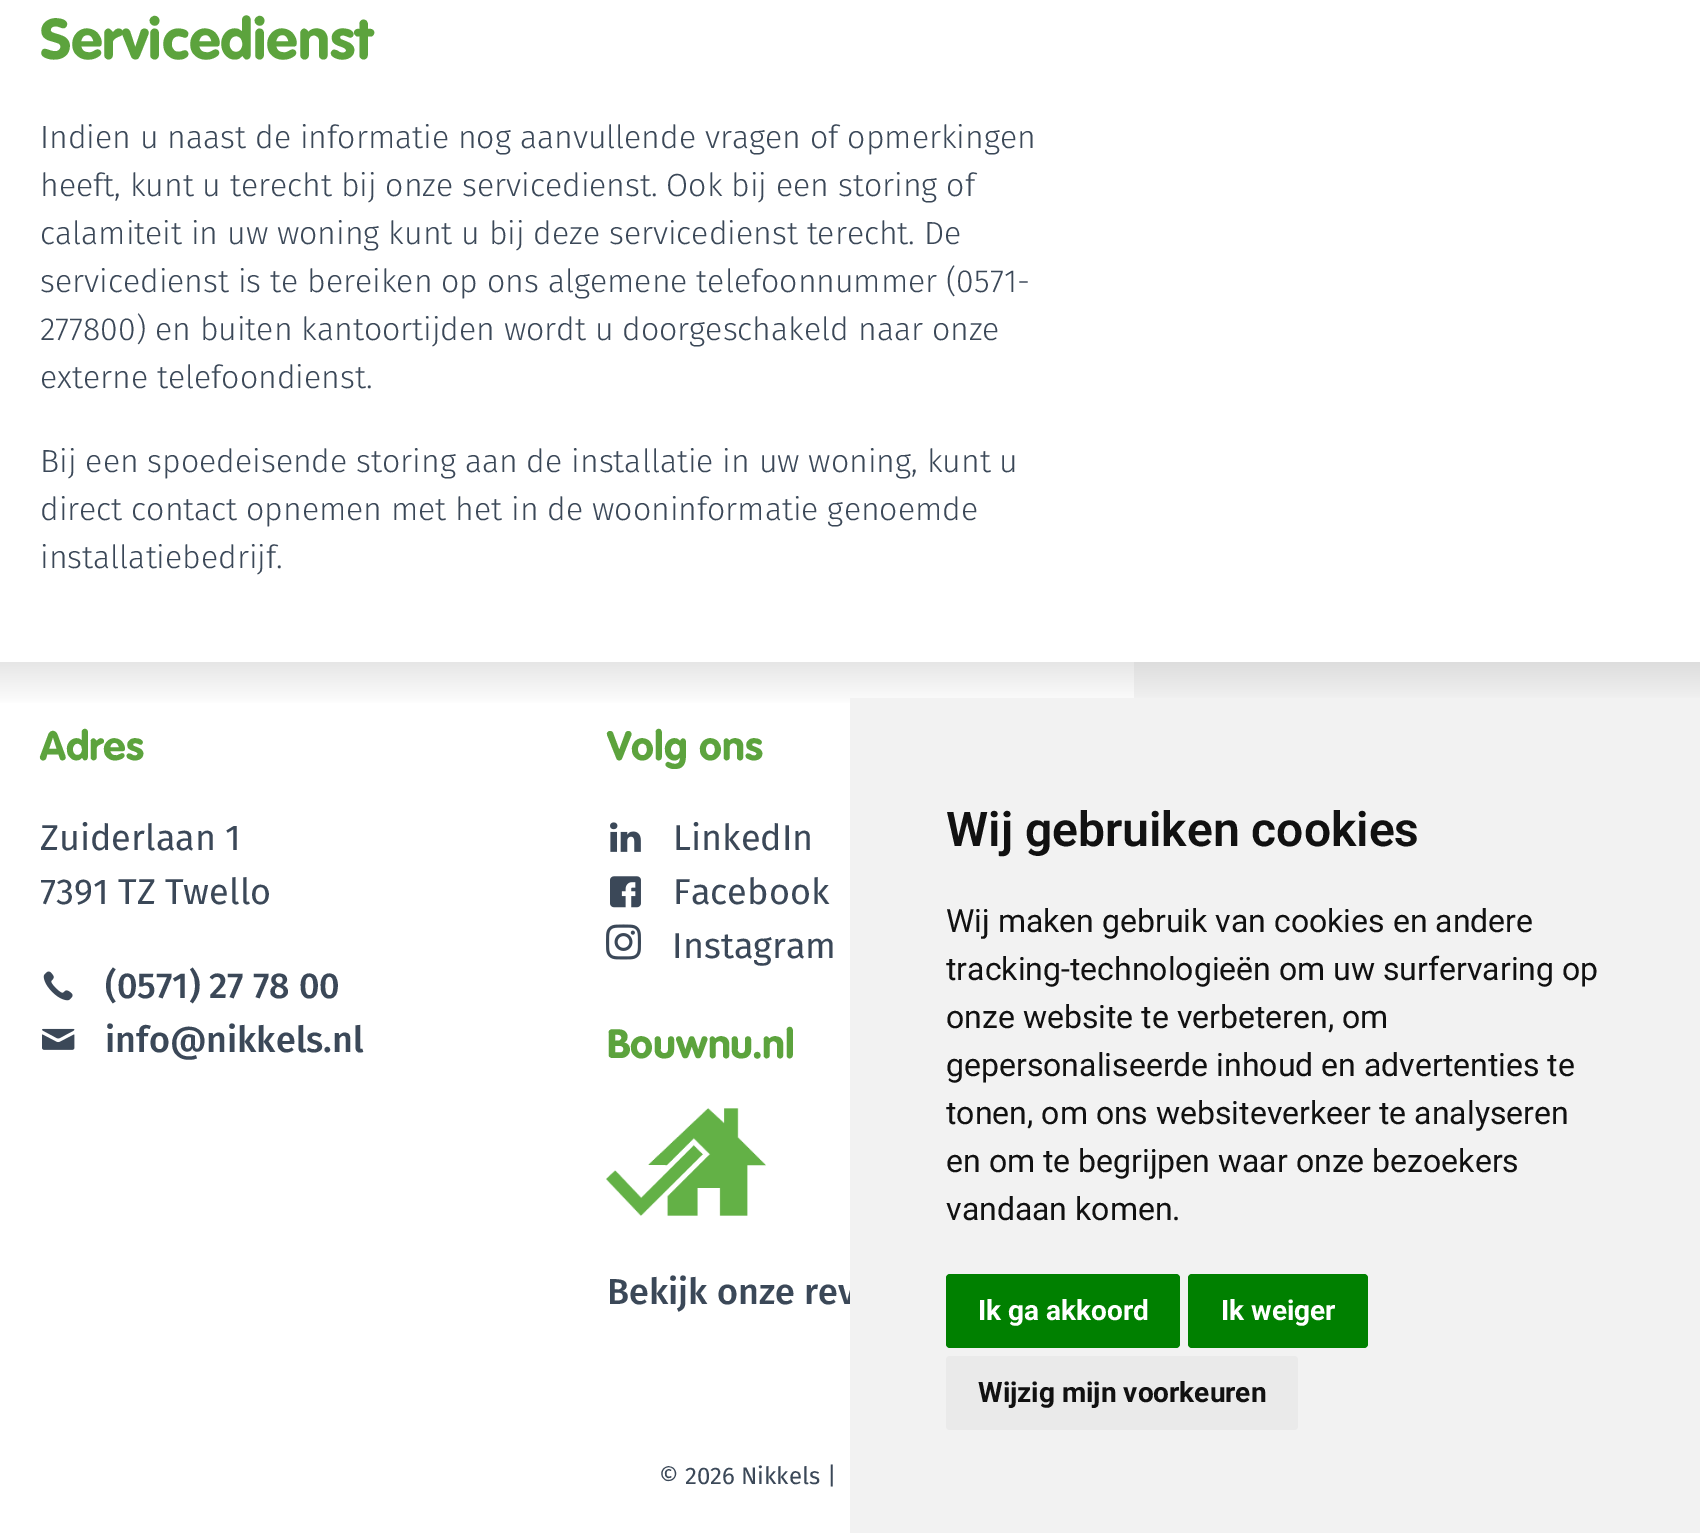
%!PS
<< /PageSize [1700 1533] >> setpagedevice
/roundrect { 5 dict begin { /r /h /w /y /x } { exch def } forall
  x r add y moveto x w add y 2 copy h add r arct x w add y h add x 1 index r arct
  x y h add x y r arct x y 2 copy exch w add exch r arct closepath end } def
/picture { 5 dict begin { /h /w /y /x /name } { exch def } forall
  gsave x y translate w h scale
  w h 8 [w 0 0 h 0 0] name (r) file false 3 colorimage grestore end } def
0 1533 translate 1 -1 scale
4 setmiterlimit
1 setgray
0 0 1700 1533 rectfill
/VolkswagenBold-Bold [56 0 0 -56 0 0] selectfont
0.361 0.639 0.239 setrgbcolor
40 59 moveto (Servicedienst) show
/FiraSans-Light [32 0 0 -32 0 0] selectfont
0.231 0.282 0.345 setrgbcolor
40 148 moveto (Indien u naast de informatie nog aanvullende vragen of opmerkingen) show
40 196 moveto (heeft, kunt u terecht bij onze servicedienst. Ook bij een storing of) show
40 244 moveto (calamiteit in uw woning kunt u bij deze servicedienst terecht. De) show
40 292 moveto (servicedienst is te bereiken op ons algemene telefoonnummer \(0571-) show
40 340 moveto (277800\) en buiten kantoortijden wordt u doorgeschakeld naar onze) show
40 388 moveto (externe telefoondienst.) show
40 472 moveto (Bij een spoedeisende storing aan de installatie in uw woning, kunt u) show
40 520 moveto (direct contact opnemen met het in de wooninformatie genoemde) show
40 568 moveto (installatiebedrijf.) show
gsave newpath 0 662 moveto 1134 662 lineto 1134 703 lineto 0 703 lineto closepath clip newpath
<< /ShadingType 2 /ColorSpace /DeviceRGB /Coords [850 662 850 1418] /Extend [true true] /Function << /FunctionType 3 /Domain [0 1] /Functions [<< /FunctionType 2 /Domain [0 1] /C0 [0.902 0.902 0.902] /C1 [1 1 1] /N 1 >> << /FunctionType 2 /Domain [0 1] /C0 [1 1 1] /C1 [1 1 1] /N 1 >> << /FunctionType 2 /Domain [0 1] /C0 [1 1 1] /C1 [1 1 1] /N 1 >>] /Bounds [0.06 0.99] /Encode [0 1 0 1 0 1] >> >> shfill grestore
gsave newpath 1134 662 moveto 1700 662 lineto 1700 698 lineto 1134 698 lineto closepath clip newpath
<< /ShadingType 2 /ColorSpace /DeviceRGB /Coords [850 662 850 1418] /Extend [true true] /Function << /FunctionType 3 /Domain [0 1] /Functions [<< /FunctionType 2 /Domain [0 1] /C0 [0.867 0.867 0.867] /C1 [0.961 0.961 0.961] /N 1 >> << /FunctionType 2 /Domain [0 1] /C0 [0.961 0.961 0.961] /C1 [0.961 0.961 0.961] /N 1 >> << /FunctionType 2 /Domain [0 1] /C0 [0.961 0.961 0.961] /C1 [0.961 0.961 0.961] /N 1 >>] /Bounds [0.06 0.99] /Encode [0 1 0 1 0 1] >> >> shfill grestore
/VolkswagenBold-Bold [40 0 0 -40 0 0] selectfont
0.361 0.639 0.239 setrgbcolor
40 760 moveto (Adres) show
/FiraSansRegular-Regular [36 0 0 -36 0 0] selectfont
0.231 0.282 0.345 setrgbcolor
40 850 moveto (Zuiderlaan 1) show
40 904 moveto (7391 TZ Twello) show
(img1.rgb) 43 971 30 30 picture
/FiraSans-Medium [36 0 0 -36 0 0] selectfont
105 998 moveto (\(0571\) 27 78 00) show
(img2.rgb) 42 1028 33 22 picture
105 1052 moveto (info@nikkels.nl) show
/VolkswagenBold-Bold [40 0 0 -40 0 0] selectfont
0.361 0.639 0.239 setrgbcolor
607 760 moveto (Volg ons) show
(img3.rgb) 610 822 31 30 picture
/FiraSansRegular-Regular [36 0 0 -36 0 0] selectfont
0.231 0.282 0.345 setrgbcolor
673 850 moveto (LinkedIn) show
(img4.rgb) 610 876 31 32 picture
673 904 moveto (Facebook) show
(img5.rgb) 606 924 35 36 picture
672 958 moveto (Instagram) show
/VolkswagenBold-Bold [40 0 0 -40 0 0] selectfont
0.361 0.639 0.239 setrgbcolor
607 1058 moveto (Bouwnu.nl) show
(img6.rgb) 606 1108 160 108 picture
/FiraSans-Medium [36 0 0 -36 0 0] selectfont
0.231 0.282 0.345 setrgbcolor
607 1304 moveto (Bekijk onze rev) show
0.949 setgray
850 698 850 835 rectfill
/Roboto-SemiBold [48 0 0 -48 0 0] selectfont
0.067 setgray
946 846 moveto (Wij gebruiken cookies) show
/Roboto-Regular [32 0 0 -32 0 0] selectfont
946 932 moveto (Wij maken gebruik van cookies en andere) show
946 980 moveto (tracking-technologieën om uw surfervaring op) show
946 1028 moveto (onze website te verbeteren, om) show
946 1076 moveto (gepersonaliseerde inhoud en advertenties te) show
946 1124 moveto (tonen, om ons websiteverkeer te analyseren) show
946 1172 moveto (en om te begrijpen waar onze bezoekers) show
946 1220 moveto (vandaan komen.) show
0 0.502 0 setrgbcolor
946 1274 234 74 4 roundrect fill
/Roboto-Bold [28 0 0 -28 0 0] selectfont
1 setgray
978 1320 moveto (Ik ga akkoord) show
0 0.502 0 setrgbcolor
1188 1274 180 74 4 roundrect fill
1 setgray
1221 1320 moveto (Ik weiger) show
0.918 setgray
946 1356 352 74 4 roundrect fill
0.067 setgray
978 1402 moveto (Wijzig mijn voorkeuren) show
/FiraSansRegular-Regular [24 0 0 -24 0 0] selectfont
0.231 0.282 0.345 setrgbcolor
659 1484 moveto (© 2026 Nikkels |) show
showpage
